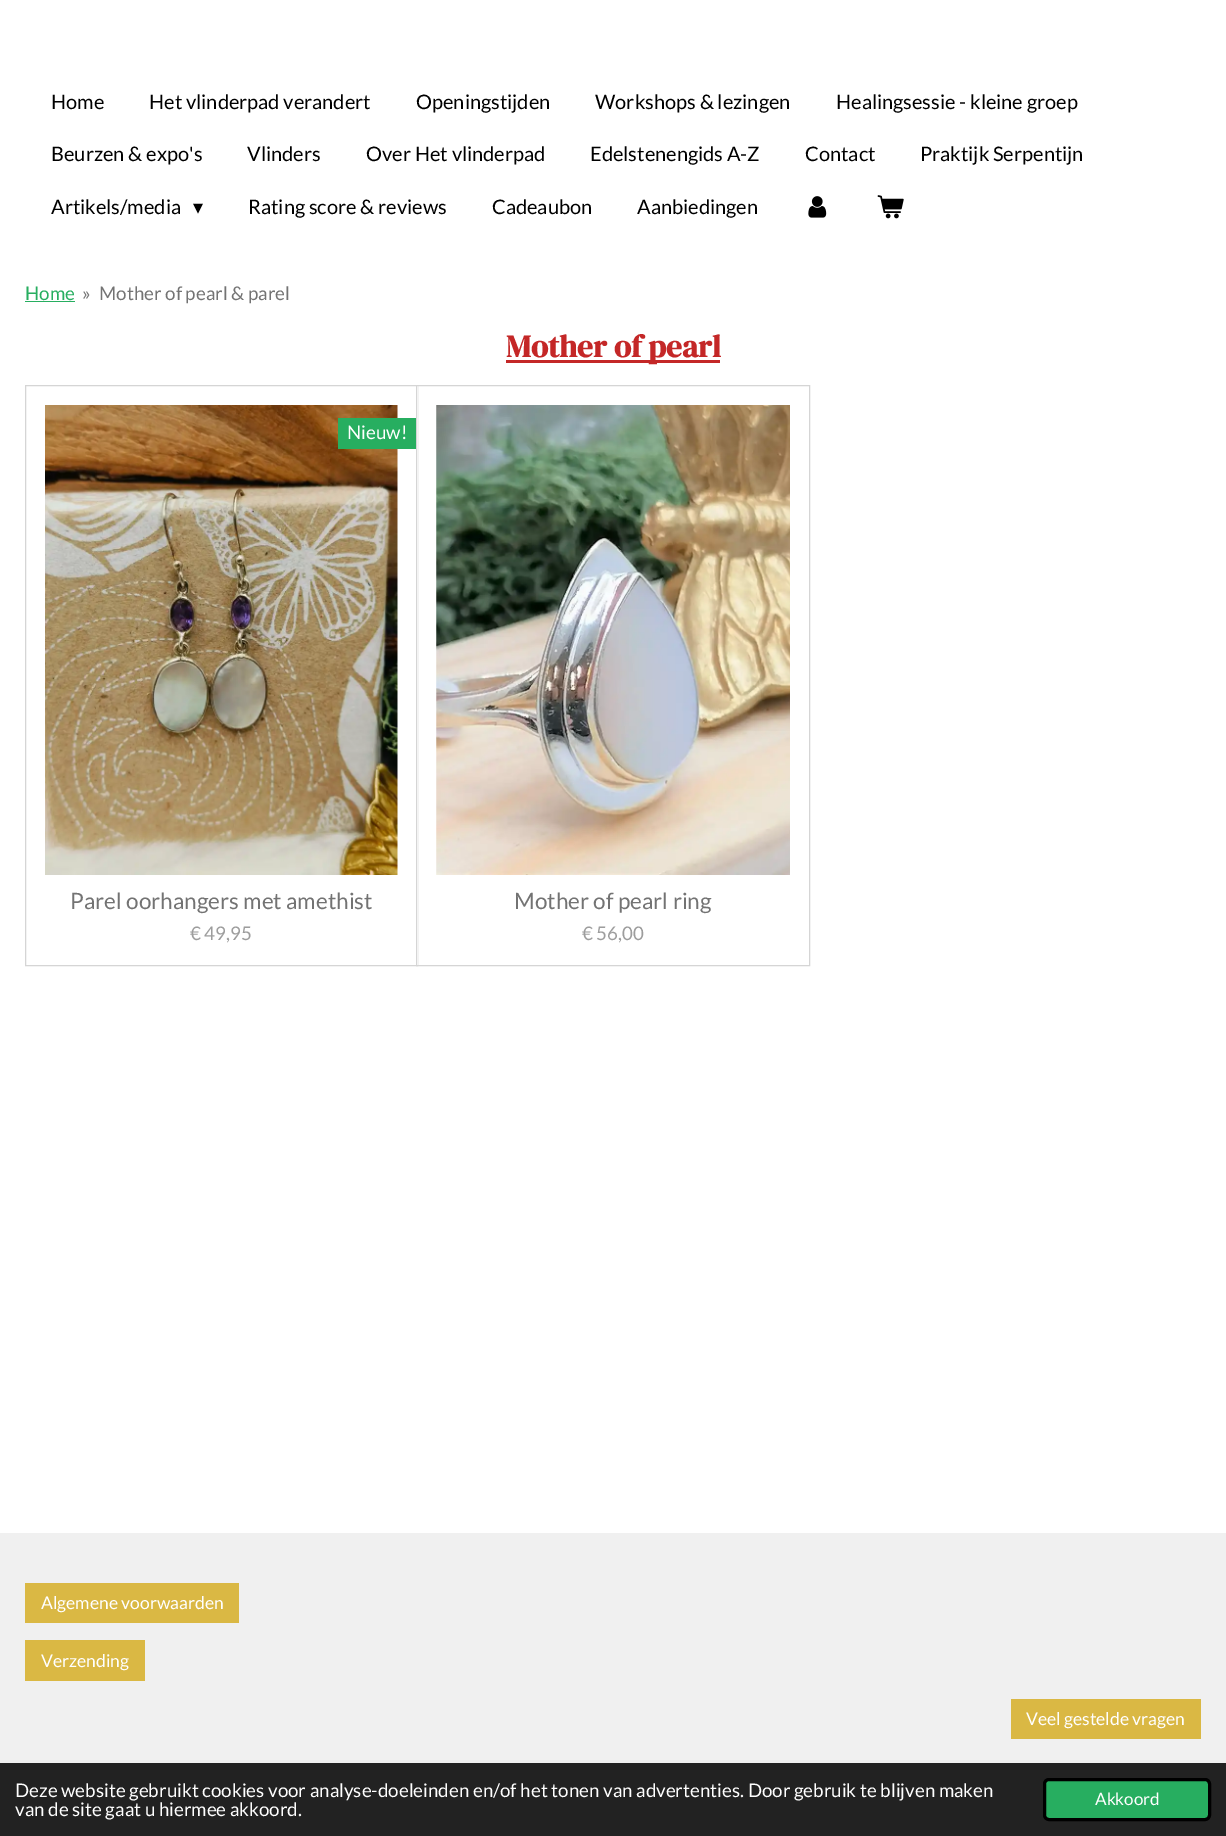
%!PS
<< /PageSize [1226 1836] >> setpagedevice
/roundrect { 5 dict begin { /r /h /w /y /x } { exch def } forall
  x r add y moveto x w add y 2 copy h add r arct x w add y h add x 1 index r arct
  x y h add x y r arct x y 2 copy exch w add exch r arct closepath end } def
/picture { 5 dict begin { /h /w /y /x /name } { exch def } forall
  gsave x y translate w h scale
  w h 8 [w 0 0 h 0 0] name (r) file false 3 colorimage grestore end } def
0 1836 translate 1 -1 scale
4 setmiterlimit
1 setgray
0 0 1226 1836 rectfill
/Lato-Regular [20 0 0 -20 0 0] selectfont
0 setgray
51 109 moveto (Home) show
149 109 moveto (Het vlinderpad verandert) show
416 109 moveto (Openingstijden) show
595 109 moveto (Workshops & lezingen) show
836 109 moveto (Healingsessie - kleine groep) show
51 161 moveto (Beurzen & expo's) show
247 161 moveto (Vlinders) show
366 161 moveto (Over Het vlinderpad) show
590 161 moveto (Edelstenengids A-Z) show
805 161 moveto (Contact) show
920 161 moveto (Praktijk Serpentijn) show
51 214 moveto (Artikels/media) show
/DejaVuSans-Regular [20 0 0 -20 0 0] selectfont
193 214 moveto (▾) show
/Lato-Regular [20 0 0 -20 0 0] selectfont
248 214 moveto (Rating score & reviews) show
492 214 moveto (Cadeaubon) show
637 214 moveto (Aanbiedingen) show
(img1.rgb) 808 196 19 22 picture
(img2.rgb) 877 195 27 24 picture
/Lato-Regular [18.75 0 0 -18.75 0 0] selectfont
0.153 0.682 0.376 setrgbcolor
25 300 moveto (Home) show
25 301 50 1 rectfill
0.451 setgray
82 300 moveto (») show
99 300 moveto (Mother of pearl & parel) show
0.769 0.153 0.153 setrgbcolor
506 360 214 3 rectfill
/DMSerifDisplay-Bold [31.25 0 0 -31.25 0 0] selectfont
506 357 moveto (Mother of pearl) show
0.835 setgray
25.5 385.5 392 580 rectstroke
(img3.rgb) 45 405 353 470 picture
0.153 0.682 0.376 setrgbcolor
338 418 78 31 rectfill
/Lato-Regular [18.75 0 0 -18.75 0 0] selectfont
1 setgray
347 439 moveto (Nieuw!) show
/Lato-Regular [22.5 0 0 -22.5 0 0] selectfont
0.451 setgray
70 909 moveto (Parel oorhangers met amethist) show
/Lato-Regular [18.75 0 0 -18.75 0 0] selectfont
0.616 setgray
190 940 moveto (€ 49,95) show
1 setgray
417 386 1 579 rectfill
0.835 setgray
416.5 385.5 393 580 rectstroke
(img4.rgb) 436 405 354 470 picture
/Lato-Regular [22.5 0 0 -22.5 0 0] selectfont
0.451 setgray
514 909 moveto (Mother of pearl ring) show
/Lato-Regular [18.75 0 0 -18.75 0 0] selectfont
0.616 setgray
582 940 moveto (€ 56,00) show
0.941 setgray
0 1533 1226 230 rectfill
0.855 0.722 0.267 setrgbcolor
25 1583 214 40 rectfill
/Lato-Regular [17.5 0 0 -17.5 0 0] selectfont
1 setgray
41 1609 moveto (Algemene voorwaarden) show
0.855 0.722 0.267 setrgbcolor
25 1640 120 41 rectfill
1 setgray
41 1667 moveto (Verzending) show
0.855 0.722 0.267 setrgbcolor
1011 1699 190 40 rectfill
1 setgray
1026 1725 moveto (Veel gestelde vragen) show
0.133 setgray
0 1763 1226 73 rectfill
/Lato-Regular [18.75 0 0 -18.75 0 0] selectfont
1 setgray
15 1797 moveto (Deze website gebruikt cookies voor analyse-doeleinden en/of het tonen van advertenties. Door gebruik te blijven maken) show
15 1816 moveto (van de site gaat u hiermee akkoord.) show
0.153 0.682 0.376 setrgbcolor
1044.5 1779.5 165 40 4.5 roundrect gsave fill grestore
0 setgray
3 setlinewidth
stroke
/Lato-Regular [17 0 0 -17 0 0] selectfont
1 setgray
1095 1805 moveto (Akkoord) show
showpage
